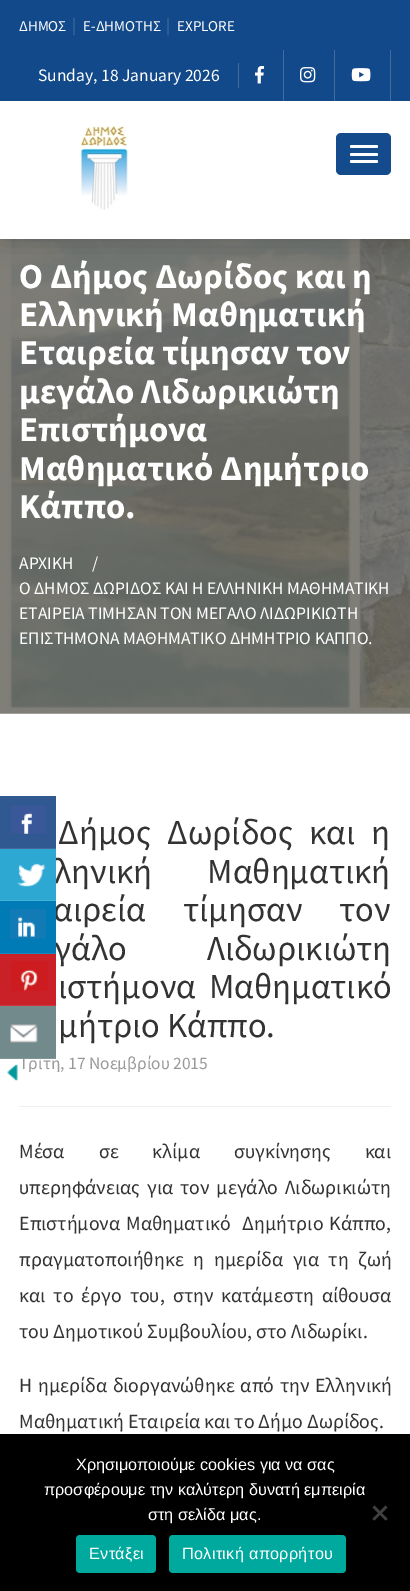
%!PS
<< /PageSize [410 1591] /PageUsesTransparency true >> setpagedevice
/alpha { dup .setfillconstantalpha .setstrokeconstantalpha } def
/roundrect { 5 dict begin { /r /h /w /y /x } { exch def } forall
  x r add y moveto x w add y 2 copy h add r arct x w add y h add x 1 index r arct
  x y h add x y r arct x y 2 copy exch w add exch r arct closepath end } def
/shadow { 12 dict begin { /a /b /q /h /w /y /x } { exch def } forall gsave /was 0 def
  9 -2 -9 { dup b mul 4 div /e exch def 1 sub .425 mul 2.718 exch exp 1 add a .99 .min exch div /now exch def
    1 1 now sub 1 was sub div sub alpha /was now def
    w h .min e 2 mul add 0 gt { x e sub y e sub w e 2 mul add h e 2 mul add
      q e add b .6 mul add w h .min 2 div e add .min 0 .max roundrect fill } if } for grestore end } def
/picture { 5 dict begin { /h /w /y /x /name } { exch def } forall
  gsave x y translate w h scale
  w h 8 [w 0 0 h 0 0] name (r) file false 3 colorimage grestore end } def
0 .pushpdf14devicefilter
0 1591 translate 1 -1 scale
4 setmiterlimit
1 setgray
0 0 410 1591 rectfill
(img5.rgb) 0 239 410 475 picture
0 setgray
0 6 410 239 0 12.5 0.15 shadow
1 setgray
0 101 410 138 rectfill
0.071 0.286 0.541 setrgbcolor
0 0 410 101 rectfill
/SourceSansPro-Regular [15 0 0 -15 0 0] selectfont
1 setgray
19 31 moveto (ΔΗΜΟΣ) show
/SourceSansPro-Regular [17.5 0 0 -17.5 0 0] selectfont
0.255 0.427 0.631 setrgbcolor
72 31 moveto (|) show
/SourceSansPro-Regular [15 0 0 -15 0 0] selectfont
1 setgray
83 31 moveto (E-ΔΗΜΟΤΗΣ) show
/SourceSansPro-Regular [17.5 0 0 -17.5 0 0] selectfont
0.255 0.427 0.631 setrgbcolor
166 31 moveto (|) show
/SourceSansPro-Regular [15 0 0 -15 0 0] selectfont
1 setgray
177 31 moveto (EXPLORE) show
0.255 0.427 0.631 setrgbcolor
238 63 1 25 rectfill
/SourceSansPro-Regular [17.5 0 0 -17.5 0 0] selectfont
1 setgray
38 81 moveto (Sunday, 18 January 2026) show
0.255 0.427 0.631 setrgbcolor
283 50 1 51 rectfill
(img1.rgb) 255 65 10 19 picture
334 50 1 51 rectfill
(img2.rgb) 300 67 16 16 picture
390 50 1 51 rectfill
(img3.rgb) 351 68 20 14 picture
(img4.rgb) 80 125 48 85 picture
0.078 0.294 0.549 setrgbcolor
336 133 55 42 5 roundrect fill
1 setgray
350 145 28 3 1.5 roundrect fill
350 153 28 3 1.5 roundrect fill
350 160 28 3 1.5 roundrect fill
/SourceSansPro-Bold [35 0 0 -35 0 0] selectfont
19 288 moveto (Ο Δήμος Δωρίδος και η) show
19 326 moveto (Ελληνική Μαθηματική) show
19 364 moveto (Εταιρεία τίμησαν τον) show
19 403 moveto (μεγάλο Λιδωρικιώτη) show
19 441 moveto (Επιστήμονα) show
19 480 moveto (Μαθηματικό Δημήτριο) show
19 518 moveto (Κάππο.) show
/SourceSansPro-Regular [17.5 0 0 -17.5 0 0] selectfont
19 569 moveto (ΑΡΧΙΚΗ) show
92 569 moveto (/) show
19 594 moveto (Ο ΔΗΜΟΣ ΔΩΡΙΔΟΣ ΚΑΙ Η ΕΛΛΗΝΙΚΗ ΜΑΘΗΜΑΤΙΚΗ) show
19 619 moveto (ΕΤΑΙΡΕΙΑ ΤΙΜΗΣΑΝ ΤΟΝ ΜΕΓΑΛΟ ΛΙΔΩΡΙΚΙΩΤΗ) show
19 644 moveto (ΕΠΙΣΤΗΜΟΝΑ ΜΑΘΗΜΑΤΙΚΟ ΔΗΜΗΤΡΙΟ ΚΑΠΠΟ.) show
/SourceSansPro-Regular [35 0 0 -35 0 0] selectfont
0.2 setgray
58 844 moveto 9 0 32 (Δήμος Δωρίδος και η) widthshow
54 883 moveto 48 0 32 (ληνική Μαθηματική) widthshow
53 921 moveto (αιρεία) show
183 921 moveto 30 0 32 (τίμησαν τον) widthshow
54 960 moveto 73 0 32 (γάλο Λιδωρικιώτη) widthshow
58 998 moveto 6 0 32 (ιστήμονα Μαθηματικό) widthshow
58 1037 moveto (μήτριο Κάππο.) show
/SourceSansPro-Regular [17.5 0 0 -17.5 0 0] selectfont
0.6 setgray
19 1069 moveto (Τρίτη, 17 Νοεμβρίου 2015) show
0.933 setgray
19 1106 372 1 rectfill
/SourceSansPro-Regular [20 0 0 -20 0 0] selectfont
0.2 setgray
19 1158 moveto 30 0 32 (Μέσα σε κλίμα συγκίνησης και) widthshow
19 1194 moveto 3 0 32 (υπερηφάνειας για τον μεγάλο Λιδωρικιώτη) widthshow
19 1230 moveto 2 0 32 (Επιστήμονα Μαθηματικό  Δημήτριο Κάππο,) widthshow
19 1266 moveto 5.75 0 32 (πραγματοποιήθηκε η ημερίδα για τη ζωή) widthshow
19 1302 moveto 4 0 32 (και το έργο του, στην κατάμεστη αίθουσα) widthshow
19 1338 moveto (του Δημοτικού Συμβουλίου, στο Λιδωρίκι.) show
19 1392 moveto 1.75 0 32 (Η ημερίδα διοργανώθηκε από την Ελληνική) widthshow
19 1428 moveto (Μαθηματική Εταιρεία και το Δήμο Δωρίδος.) show
0.188 0.345 0.569 setrgbcolor
0 796 56 52 rectfill
0.271 0.412 0.612 setrgbcolor
0 848 56 1 rectfill
(img6.rgb) 11 805 35 29 picture
0.173 0.659 0.824 setrgbcolor
0 849 56 51 rectfill
0.255 0.694 0.843 setrgbcolor
0 900 56 1 rectfill
(img7.rgb) 17 863 29 24 picture
0 0.482 0.714 setrgbcolor
0 901 56 52 rectfill
0.102 0.533 0.741 setrgbcolor
0 953 56 1 rectfill
(img8.rgb) 10 909 36 30 picture
0.792 0.125 0.153 setrgbcolor
0 954 56 51 rectfill
0.812 0.212 0.239 setrgbcolor
0 1005 56 1 rectfill
(img9.rgb) 11 961 37 30 picture
0.451 0.541 0.553 setrgbcolor
0 1006 56 52 rectfill
0.506 0.588 0.596 setrgbcolor
0 1058 56 1 rectfill
(img10.rgb) 10 1024 28 19 picture
(img11.rgb) 7 1064 11 17 picture
0 setgray
0 1434 410 157 rectfill
/LiberationSans-Regular [16.25 0 0 -16.25 0 0] selectfont
1 setgray
76 1470 moveto (Χρησιμοποιούμε cookies για να σας) show
44 1495 moveto (προσφέρουμε την καλύτερη δυνατή εμπειρία) show
148 1520 moveto (στη σελίδα μας.) show
0.251 setgray
newpath 385.5 1505.5 moveto 387.5 1507.5 lineto 374.5 1520.5 lineto 372.5 1519 lineto closepath fill
newpath 372.5 1507.5 moveto 374.5 1505.5 lineto 387.5 1519 lineto 385.5 1520.5 lineto closepath fill
0 0.663 0.616 setrgbcolor
76 1535 80 38 4 roundrect fill
1 setgray
89 1559 moveto 0.3 0 (Εντάξει) ashow
0 0.663 0.616 setrgbcolor
169 1535 177 38 4 roundrect fill
1 setgray
182 1559 moveto 0.3 0 (Πολιτική απορρήτου) ashow
.poppdf14devicefilter showpage
